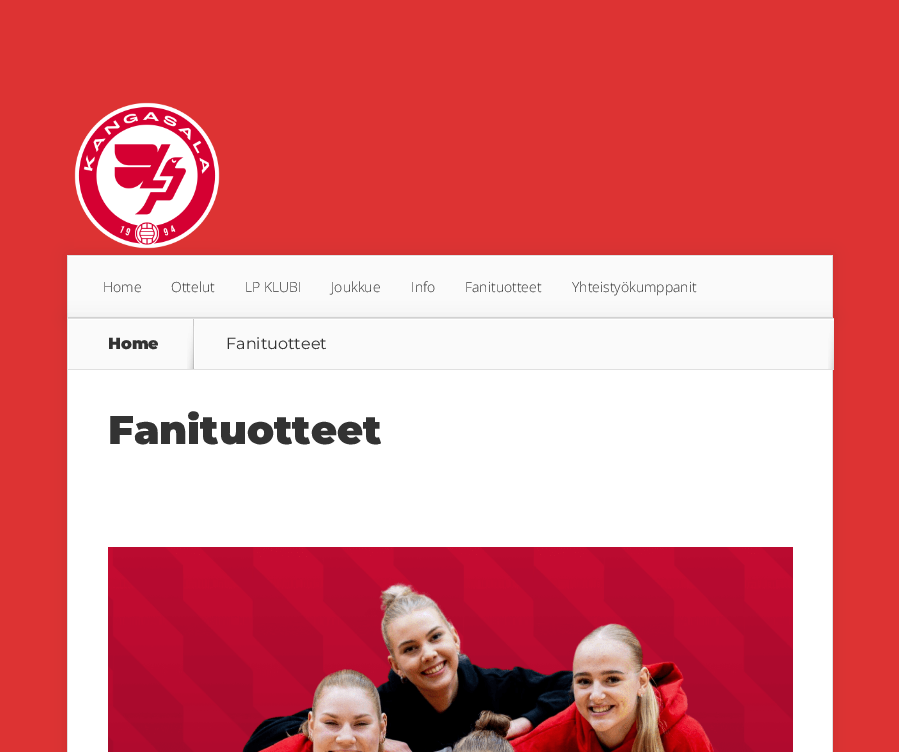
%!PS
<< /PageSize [899 752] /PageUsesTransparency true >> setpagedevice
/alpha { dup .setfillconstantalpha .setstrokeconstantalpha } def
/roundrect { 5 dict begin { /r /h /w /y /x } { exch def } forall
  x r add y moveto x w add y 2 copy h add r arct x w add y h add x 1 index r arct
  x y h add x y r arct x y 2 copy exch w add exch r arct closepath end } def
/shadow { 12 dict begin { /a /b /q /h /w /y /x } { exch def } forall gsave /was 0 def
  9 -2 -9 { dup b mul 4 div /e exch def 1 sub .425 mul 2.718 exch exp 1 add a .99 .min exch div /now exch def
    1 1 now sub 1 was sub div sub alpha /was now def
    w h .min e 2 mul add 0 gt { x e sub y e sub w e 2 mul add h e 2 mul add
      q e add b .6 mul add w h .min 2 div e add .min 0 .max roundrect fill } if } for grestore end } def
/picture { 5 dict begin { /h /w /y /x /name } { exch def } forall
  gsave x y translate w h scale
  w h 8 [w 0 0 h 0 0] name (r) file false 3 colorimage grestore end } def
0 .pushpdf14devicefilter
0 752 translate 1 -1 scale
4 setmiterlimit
0.867 0.2 0.2 setrgbcolor
0 0 899 752 rectfill
0 setgray
67 255 766 63 0 7.5 0.07 shadow
(img1.rgb) 74 102 146 147 picture
0.98 setgray
68 257 764 60 rectfill
0.855 setgray
68 317 764 1 rectfill
1 setgray
68 256 764 1 rectfill
0.878 setgray
67 255 766 1 rectfill
832 255 1 63 rectfill
67 255 1 63 rectfill
/OpenSans-Light [14 0 0 -14 0 0] selectfont
0.2 setgray
103 292 moveto (Home) show
171 292 moveto (Ottelut) show
245 292 moveto (LP KLUBI) show
331 292 moveto (Joukkue) show
411 292 moveto (Info) show
465 292 moveto (Fanituotteet) show
572 292 moveto (Yhteistyökumppanit) show
0 setgray
67 318 766 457 0 7.5 0.07 shadow
1 setgray
68 370 764 382 rectfill
0.878 setgray
832 370 1 382 rectfill
67 318 1 434 rectfill
0.98 setgray
69 320 765 49 rectfill
gsave
68 319 766 50 rectclip
1 setgray
newpath -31 220 moveto 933 220 lineto 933 468 lineto -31 468 lineto closepath 69 320 moveto 835 320 lineto 835 370 lineto 69 370 lineto closepath eofill
grestore
0.878 setgray
68 318 766 1 rectfill
68 369 766 1 rectfill
/Montserrat-Black [16 0 0 -16 0 0] selectfont
0.2 setgray
108 349 moveto (Home) show
0.792 0.788 0.788 setrgbcolor
193 319 1 50 rectfill
(img2.rgb) 187 326 8 43 picture
/Montserrat-Regular [16 0 0 -16 0 0] selectfont
0.2 setgray
226 349 moveto (Fanituotteet) show
(img3.rgb) 828 321 6 48 picture
/Montserrat-Black [40 0 0 -40 0 0] selectfont
108 444 moveto (Fanituotteet) show
(img4.rgb) 108 547 685 205 picture
.poppdf14devicefilter showpage
